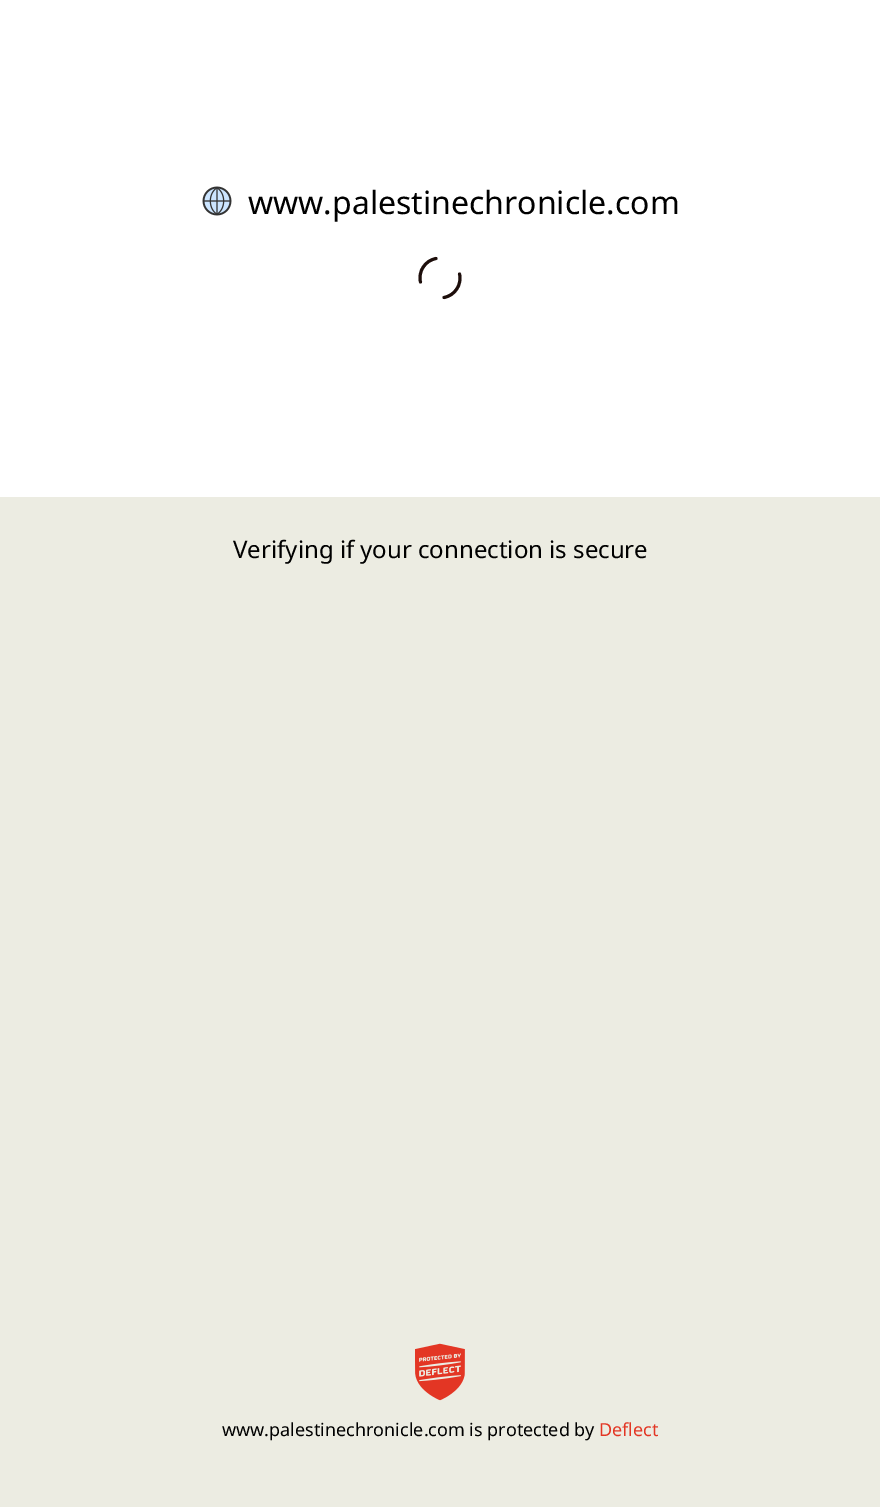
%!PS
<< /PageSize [880 1507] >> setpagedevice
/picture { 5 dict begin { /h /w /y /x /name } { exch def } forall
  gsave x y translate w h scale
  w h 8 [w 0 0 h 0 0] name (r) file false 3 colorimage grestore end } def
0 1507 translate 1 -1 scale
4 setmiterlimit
1 setgray
0 0 880 1507 rectfill
(img1.rgb) 202 186 30 30 picture
/NotoSans-Regular [32 0 0 -32 0 0] selectfont
0 setgray
248 214 moveto (www.palestinechronicle.com) show
0.114 0.055 0.043 setrgbcolor
3 setlinewidth
1 setlinecap
newpath 459.5 274 moveto 462 284.5 455 295.5 444 297.5 curveto 420.5 282 moveto 418 271.5 425 260.5 436 258.5 curveto stroke
0.925 0.925 0.886 setrgbcolor
0 497 880 1010 rectfill
/NotoSans-Regular [24 0 0 -24 0 0] selectfont
0 setgray
233 558 moveto (Verifying if your connection is secure) show
(img2.rgb) 415 1343 50 58 picture
/NotoSans-Regular [18 0 0 -18 0 0] selectfont
222 1436 moveto (www.palestinechronicle.com is protected by) show
0.89 0.212 0.141 setrgbcolor
599 1436 moveto (Deflect) show
showpage
